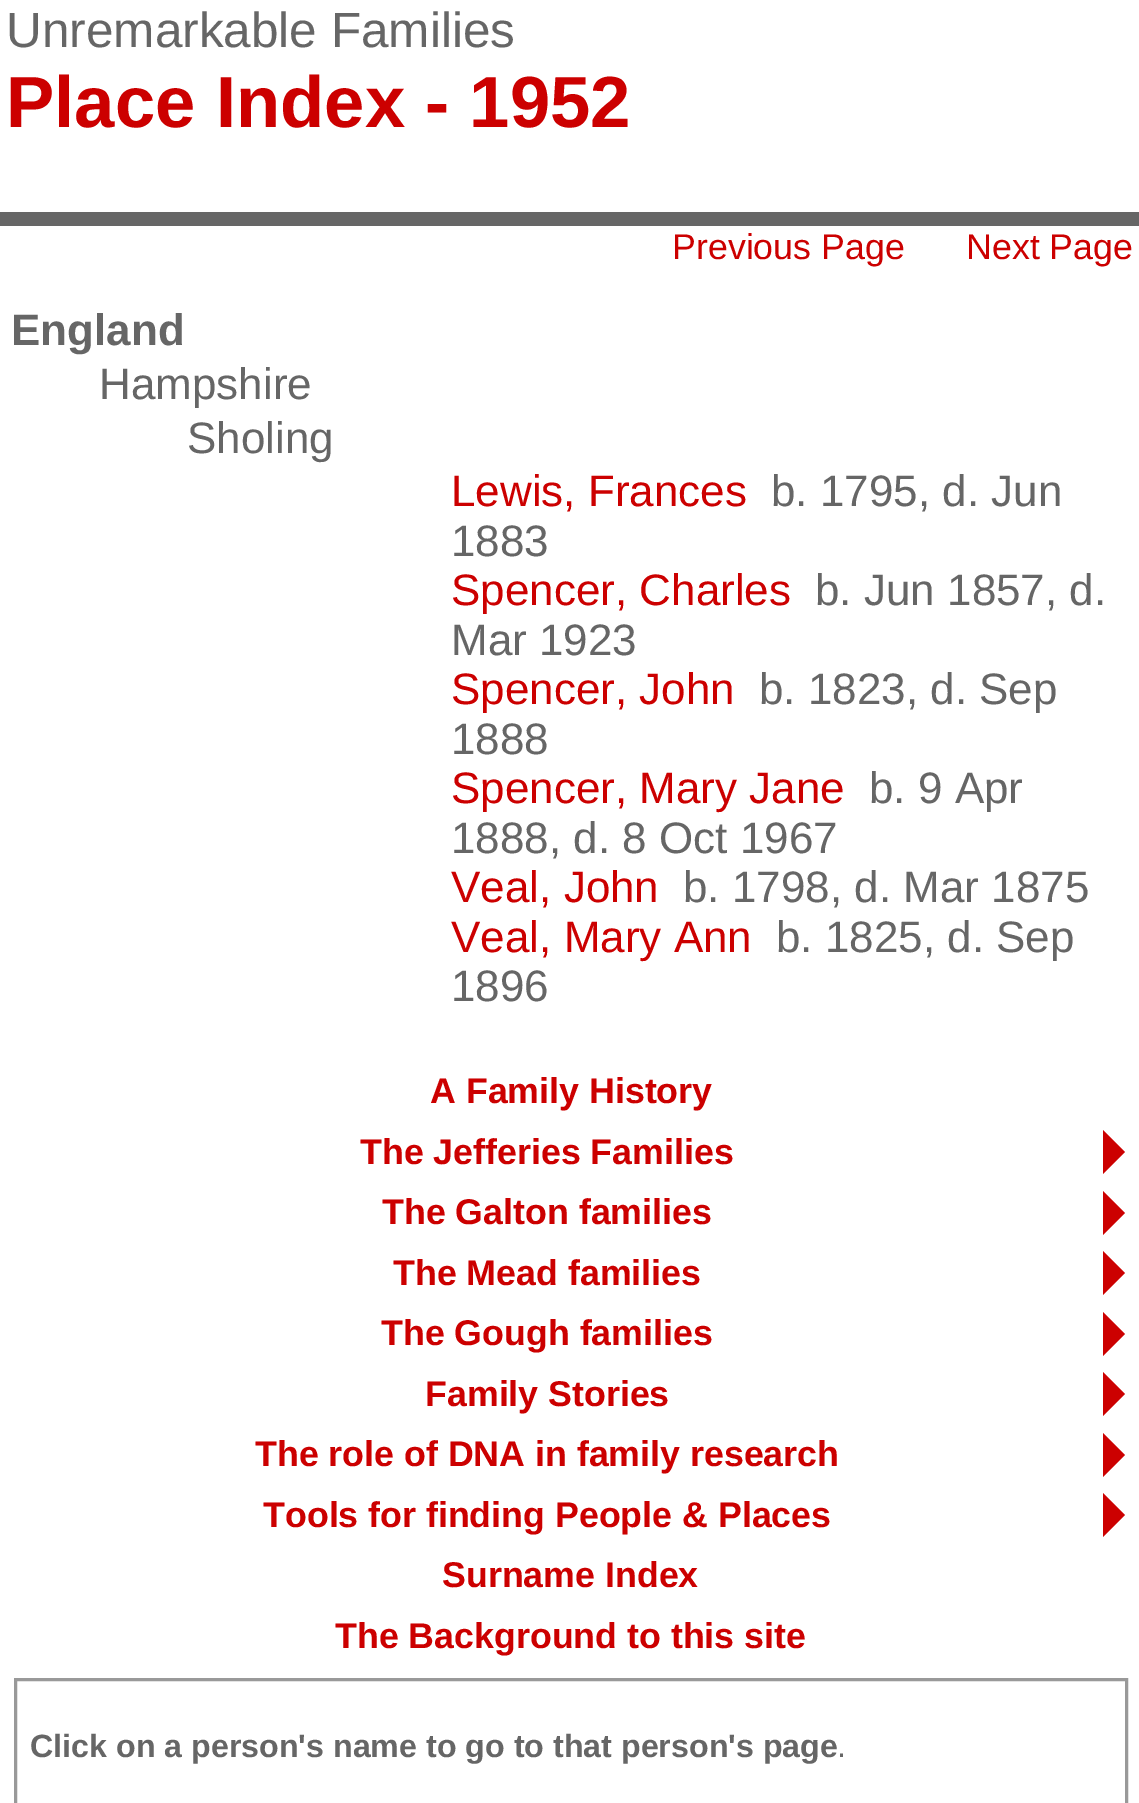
%!PS
<< /PageSize [1139 1803] >> setpagedevice
0 1803 translate 1 -1 scale
4 setmiterlimit
1 setgray
0 0 1139 1803 rectfill
/LiberationSans-Regular [49.5 0 0 -49.5 0 0] selectfont
0.4 setgray
6 47 moveto (Unremarkable Families) show
/LiberationSans-Bold [72.5 0 0 -72.5 0 0] selectfont
0.8 0 0 setrgbcolor
6 127 moveto (Place Index - 1952) show
0.4 setgray
0 212 1139 14 rectfill
/LiberationSans-Regular [35.75 0 0 -35.75 0 0] selectfont
0.8 0 0 setrgbcolor
672 259 moveto (Previous Page) show
966 259 moveto (Next Page) show
/LiberationSans-Bold [44 0 0 -44 0 0] selectfont
0.4 setgray
11 345 moveto (England) show
/LiberationSans-Regular [44 0 0 -44 0 0] selectfont
99 399 moveto (Hampshire) show
187 453 moveto (Sholing) show
0.8 0 0 setrgbcolor
451 506 moveto (Lewis, Frances) show
0.4 setgray
771 506 moveto (b. 1795, d. Jun) show
451 556 moveto (1883) show
0.8 0 0 setrgbcolor
451 605 moveto (Spencer, Charles) show
0.4 setgray
815 605 moveto (b. Jun 1857, d.) show
451 655 moveto (Mar 1923) show
0.8 0 0 setrgbcolor
451 704 moveto (Spencer, John) show
0.4 setgray
759 704 moveto (b. 1823, d. Sep) show
451 754 moveto (1888) show
0.8 0 0 setrgbcolor
451 803 moveto (Spencer, Mary Jane) show
0.4 setgray
869 803 moveto (b. 9 Apr) show
451 853 moveto (1888, d. 8 Oct 1967) show
0.8 0 0 setrgbcolor
451 902 moveto (Veal, John) show
0.4 setgray
683 902 moveto (b. 1798, d. Mar 1875) show
0.8 0 0 setrgbcolor
451 952 moveto (Veal, Mary Ann) show
0.4 setgray
776 952 moveto (b. 1825, d. Sep) show
451 1001 moveto (1896) show
/LiberationSans-Bold [35.75 0 0 -35.75 0 0] selectfont
0.8 0 0 setrgbcolor
430 1103 moveto (A Family History) show
360 1164 moveto (The Jefferies Families) show
newpath 1103 1174 moveto 1103 1130 lineto 1125 1152 lineto closepath fill
382 1224 moveto (The Galton families) show
newpath 1103 1235 moveto 1103 1191 lineto 1125 1213 lineto closepath fill
393 1285 moveto (The Mead families) show
newpath 1103 1295 moveto 1103 1251 lineto 1125 1273 lineto closepath fill
381 1345 moveto (The Gough families) show
newpath 1103 1356 moveto 1103 1312 lineto 1125 1334 lineto closepath fill
425 1406 moveto (Family Stories) show
newpath 1103 1416 moveto 1103 1372 lineto 1125 1394 lineto closepath fill
255 1466 moveto (The role of DNA in family research) show
newpath 1103 1477 moveto 1103 1433 lineto 1125 1455 lineto closepath fill
263 1527 moveto (Tools for finding People & Places) show
newpath 1103 1537 moveto 1103 1493 lineto 1125 1515 lineto closepath fill
442 1587 moveto (Surname Index) show
335 1648 moveto (The Background to this site) show
0.6 setgray
3 setlinewidth
15.5 1679.5 1111 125 rectstroke
/LiberationSans-Bold [32.2 0 0 -32.2 0 0] selectfont
0.4 setgray
30 1757 moveto (Click on a person's name to go to that person's page) show
/LiberationSans-Regular [32.2 0 0 -32.2 0 0] selectfont
837 1757 moveto (.) show
showpage
